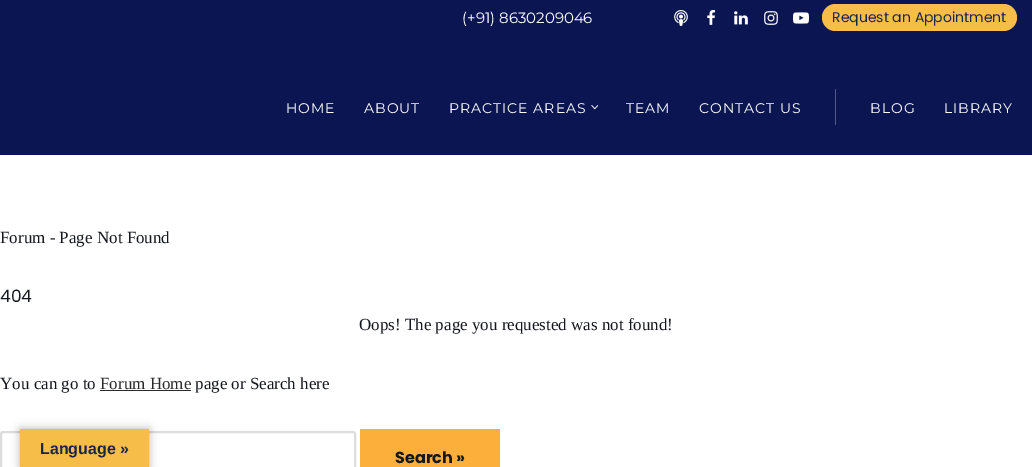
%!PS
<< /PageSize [1032 467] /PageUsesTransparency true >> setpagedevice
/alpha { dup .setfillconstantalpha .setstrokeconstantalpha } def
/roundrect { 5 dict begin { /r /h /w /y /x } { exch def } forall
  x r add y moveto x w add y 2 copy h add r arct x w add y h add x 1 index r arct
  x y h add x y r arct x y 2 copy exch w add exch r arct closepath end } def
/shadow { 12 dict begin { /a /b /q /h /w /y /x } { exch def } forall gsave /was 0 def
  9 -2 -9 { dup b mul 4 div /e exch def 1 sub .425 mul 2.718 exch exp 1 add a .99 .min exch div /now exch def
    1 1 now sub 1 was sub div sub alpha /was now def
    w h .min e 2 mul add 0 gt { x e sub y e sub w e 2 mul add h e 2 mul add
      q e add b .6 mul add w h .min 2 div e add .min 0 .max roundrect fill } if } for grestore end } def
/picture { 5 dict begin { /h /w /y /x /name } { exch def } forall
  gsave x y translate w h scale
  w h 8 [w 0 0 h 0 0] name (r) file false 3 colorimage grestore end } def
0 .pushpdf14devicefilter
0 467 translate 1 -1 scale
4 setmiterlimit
1 setgray
0 0 1032 467 rectfill
0.039 0.082 0.322 setrgbcolor
0 0 1032 155 rectfill
/Montserrat-Regular [15 0 0 -15 0 0] selectfont
1 setgray
462 23 moveto (\(+91\) 8630209046) show
(img1.rgb) 674 10 14 16 picture
(img2.rgb) 707 10 8 15 picture
(img3.rgb) 734 11 14 14 picture
(img4.rgb) 764 11 14 14 picture
(img5.rgb) 793 12 16 12 picture
0.969 0.741 0.286 setrgbcolor
822 4 195 27 13.5 roundrect fill
/Poppins-Regular [14 0 0 -14 0 0] selectfont
0.102 0.141 0.318 setrgbcolor
832 22 moveto (Request an Appointment) show
/Montserrat-Regular [14 0 0 -14 0 0] selectfont
1 setgray
286 113 moveto 1 0 (HOME) ashow
364 113 moveto 1 0 (ABOUT) ashow
449 113 moveto 1 0 (PRACTICE AREAS) ashow
(img6.rgb) 591 105 7 5 picture
626 113 moveto 1 0 (TEAM) ashow
699 113 moveto 1 0 (CONTACT US) ashow
0.318 0.349 0.518 setrgbcolor
835 89 1 36 rectfill
1 setgray
870 113 moveto 1 0 (BLOG) ashow
944 113 moveto 1 0 (LIBRARY) ashow
/LiberationSerif-Regular [17 0 0 -17 0 0] selectfont
0.078 0.09 0.11 setrgbcolor
0 243 moveto (Forum - Page Not Found) show
/Poppins-Regular [17 0 0 -17 0 0] selectfont
0 302 moveto (404) show
/LiberationSerif-Regular [17 0 0 -17 0 0] selectfont
359 330 moveto (Oops! The page you requested was not found!) show
0 389 moveto (You can go to) show
0.169 setgray
100 389 moveto (Forum Home) show
100 390 91 1 rectfill
0.078 0.09 0.11 setrgbcolor
195 389 moveto (page or Search here) show
0.867 setgray
2 setlinewidth
1 432 354 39 2 roundrect stroke
0.988 0.686 0.231 setrgbcolor
360 429 140 38 rectfill
/Poppins-Bold [16 0 0 -16 0 0] selectfont
0.078 0.09 0.11 setrgbcolor
395 463 moveto (Search ») show
0 setgray
20 429 129 38 0 4.5 0.3 shadow
0.969 0.741 0.286 setrgbcolor
20 429 129 38 rectfill
/LiberationSans-Bold [16 0 0 -16 0 0] selectfont
0.102 0.141 0.318 setrgbcolor
40 454 moveto (Language ») show
.poppdf14devicefilter showpage
